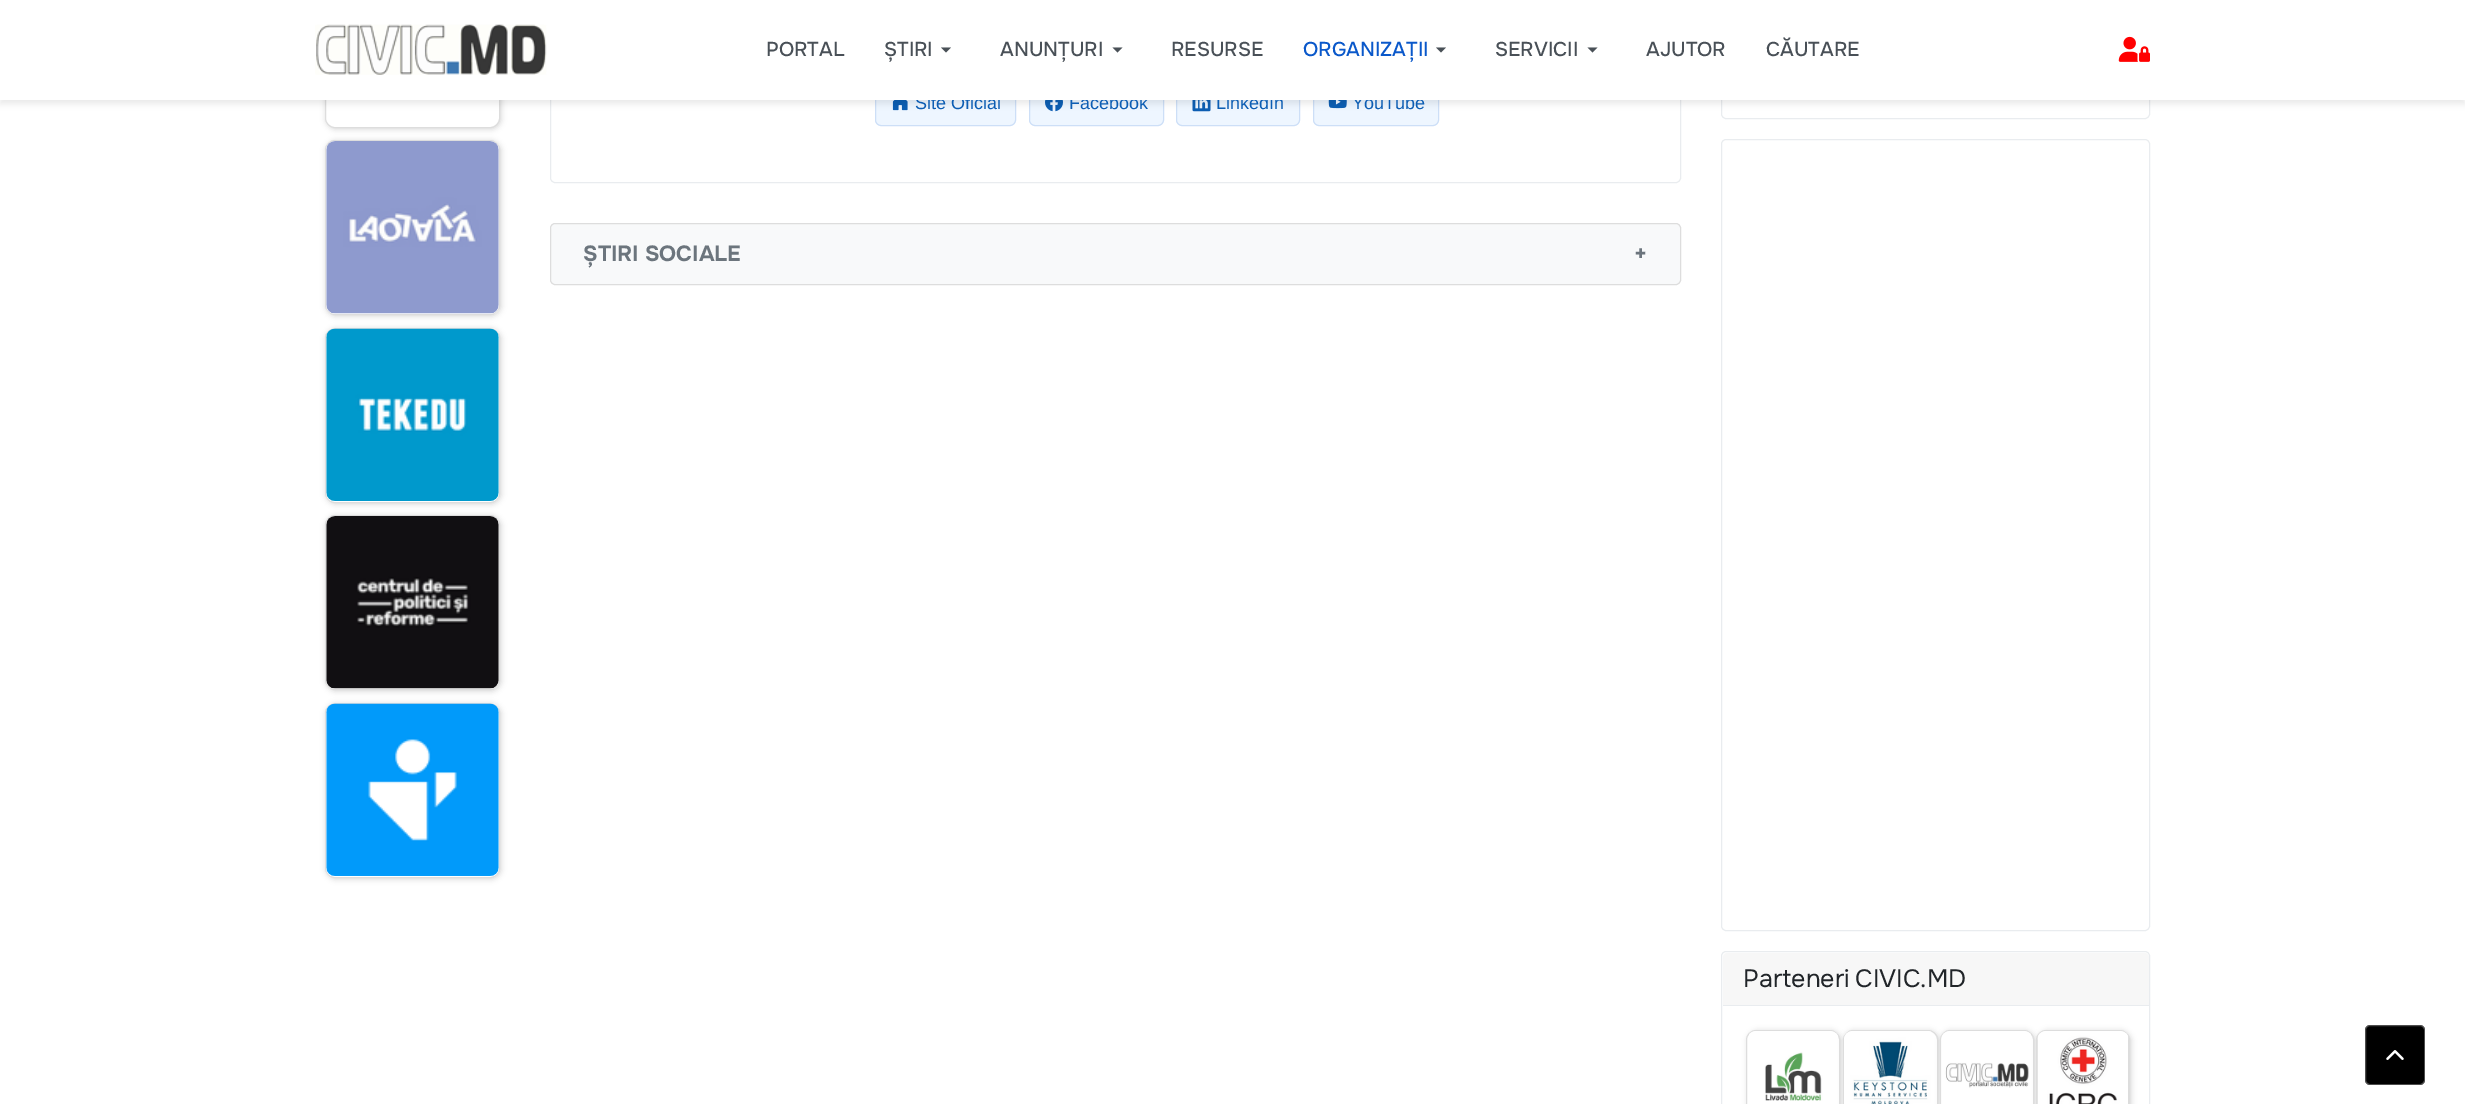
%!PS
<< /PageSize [2465 1104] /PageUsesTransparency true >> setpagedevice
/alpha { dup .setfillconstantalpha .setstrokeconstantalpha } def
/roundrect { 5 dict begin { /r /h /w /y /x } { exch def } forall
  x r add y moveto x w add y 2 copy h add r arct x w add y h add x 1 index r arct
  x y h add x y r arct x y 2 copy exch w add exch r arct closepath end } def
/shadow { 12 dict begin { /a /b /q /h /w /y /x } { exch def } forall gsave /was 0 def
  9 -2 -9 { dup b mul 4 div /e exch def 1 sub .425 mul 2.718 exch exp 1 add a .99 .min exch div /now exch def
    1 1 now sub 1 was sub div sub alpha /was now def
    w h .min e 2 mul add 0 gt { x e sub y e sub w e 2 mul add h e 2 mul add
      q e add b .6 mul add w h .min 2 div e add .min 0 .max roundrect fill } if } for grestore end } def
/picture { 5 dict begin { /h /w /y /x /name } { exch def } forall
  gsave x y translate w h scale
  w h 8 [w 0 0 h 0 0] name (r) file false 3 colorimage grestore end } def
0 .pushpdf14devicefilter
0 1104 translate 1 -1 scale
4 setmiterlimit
1 setgray
0 0 2465 1104 rectfill
gsave
newpath 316 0 moveto 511 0 lineto 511 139 lineto 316 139 lineto closepath 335 -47 moveto 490 -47 lineto 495.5 -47 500 -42.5 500 -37 curveto 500 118 lineto 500 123.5 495.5 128 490 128 curveto 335 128 lineto 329.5 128 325 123.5 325 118 curveto 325 -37 lineto 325 -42.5 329.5 -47 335 -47 curveto closepath eoclip newpath
0.827 setgray
326 -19 175 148 10 3 1 shadow
grestore
0.867 setgray
325.5 -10.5 174 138 9.5 roundrect stroke
0.914 0.925 0.937 setrgbcolor
550.5 -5.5 1130 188 4.5 roundrect stroke
0.933 0.965 1 setrgbcolor
875.5 79.5 140 46 5.5 roundrect gsave fill grestore
0.804 0.875 0.969 setrgbcolor
stroke
(img7.rgb) 892 100 16 11 picture
0.933 0.965 1 setrgbcolor
1029.5 79.5 134 46 5.5 roundrect gsave fill grestore
0.804 0.875 0.969 setrgbcolor
stroke
(img8.rgb) 1045 100 18 12 picture
0.933 0.965 1 setrgbcolor
1176.5 79.5 123 46 5.5 roundrect gsave fill grestore
0.804 0.875 0.969 setrgbcolor
stroke
(img9.rgb) 1192 100 19 12 picture
0.933 0.965 1 setrgbcolor
1313.5 79.5 125 46 5.5 roundrect gsave fill grestore
0.804 0.875 0.969 setrgbcolor
stroke
(img10.rgb) 1328 100 19 9 picture
0.914 0.925 0.937 setrgbcolor
1721.5 -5.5 428 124 4.5 roundrect stroke
0 setgray
0 4 2465 100 0 3 0.08 shadow
/LiberationSans-Regular [18 0 0 -18 0 0] selectfont
0.047 0.365 0.702 setrgbcolor
915 109 moveto (Site Oficial) show
1069 109 moveto (Facebook) show
1216 109 moveto (LinkedIn) show
1352 109 moveto (YouTube) show
1 setgray
0 0 2465 100 rectfill
(img1.rgb) 315 24 232 51 picture
/Onest-Medium [20 0 0 -20 0 0] selectfont
0.286 0.314 0.341 setrgbcolor
766 56 moveto (PORTAL) show
884 56 moveto (ȘTIRI) show
newpath 941 47.5 moveto 951 47.5 lineto 946 52.5 lineto closepath fill
1000 56 moveto (ANUNȚURI) show
newpath 1112.5 47.5 moveto 1122.5 47.5 lineto 1117.5 52.5 lineto closepath fill
1171 56 moveto (RESURSE) show
0.039 0.345 0.792 setrgbcolor
1303 56 moveto (ORGANIZAȚII) show
0.286 0.314 0.341 setrgbcolor
newpath 1436 47.5 moveto 1446 47.5 lineto 1441 52.5 lineto closepath fill
1495 56 moveto (SERVICII) show
newpath 1587.5 47.5 moveto 1597.5 47.5 lineto 1592.5 52.5 lineto closepath fill
1646 56 moveto (AJUTOR) show
1766 56 moveto (CĂUTARE) show
(img2.rgb) 2118 36 32 26 picture
0.827 setgray
326 141 175 175 10 3 1 shadow
0.867 setgray
325.5 140.5 174 174 9.5 roundrect stroke
(img3.rgb) 326 141 173 173 picture
gsave
newpath 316 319 moveto 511 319 lineto 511 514 lineto 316 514 lineto closepath 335 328 moveto 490 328 lineto 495.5 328 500 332.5 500 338 curveto 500 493 lineto 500 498.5 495.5 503 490 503 curveto 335 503 lineto 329.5 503 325 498.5 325 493 curveto 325 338 lineto 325 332.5 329.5 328 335 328 curveto closepath eoclip newpath
0.827 setgray
326 329 175 175 10 3 1 shadow
grestore
325.5 328.5 174 174 9.5 roundrect stroke
(img4.rgb) 326 328 173 173 picture
0.827 setgray
326 516 175 175 10 3 1 shadow
0.867 setgray
325.5 515.5 174 174 9.5 roundrect stroke
(img5.rgb) 326 516 173 173 picture
gsave
newpath 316 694 moveto 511 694 lineto 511 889 lineto 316 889 lineto closepath 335 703 moveto 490 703 lineto 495.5 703 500 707.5 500 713 curveto 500 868 lineto 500 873.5 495.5 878 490 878 curveto 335 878 lineto 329.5 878 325 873.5 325 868 curveto 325 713 lineto 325 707.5 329.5 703 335 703 curveto closepath eoclip newpath
0.827 setgray
326 704 175 175 10 3 1 shadow
grestore
325.5 703.5 174 174 9.5 roundrect stroke
(img6.rgb) 326 703 173 173 picture
0.973 0.976 0.98 setrgbcolor
550.5 223.5 1130 61 4.5 roundrect gsave fill grestore
0.867 setgray
stroke
/Onest-Bold [22 0 0 -22 0 0] selectfont
0.424 0.459 0.49 setrgbcolor
583 261 moveto (ȘTIRI SOCIALE) show
1634 261 moveto (+) show
0.914 0.925 0.937 setrgbcolor
1721.5 139.5 428 791 4.5 roundrect stroke
1721.5 951.5 428 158 4.5 roundrect stroke
0.969 setgray
newpath 1727 953 moveto 2145 953 lineto 2147 953 2149 955 2149 957 curveto 2149 1006 lineto 1723 1006 lineto 1723 957 lineto 1723 955 1725 953 1727 953 curveto closepath fill
0.914 0.925 0.937 setrgbcolor
1723 1005 426 1 rectfill
/Onest-Regular [25 0 0 -25 0 0] selectfont
0.129 0.145 0.161 setrgbcolor
1743 987 moveto -1 0 32 (Parteneri CIVIC.MD) widthshow
gsave
newpath 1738 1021 moveto 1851 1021 lineto 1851 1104 lineto 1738 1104 lineto closepath 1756 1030 moveto 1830 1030 lineto 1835.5 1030 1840 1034.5 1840 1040 curveto 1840 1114 lineto 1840 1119.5 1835.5 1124 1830 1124 curveto 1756 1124 lineto 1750.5 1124 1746 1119.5 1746 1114 curveto 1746 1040 lineto 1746 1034.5 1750.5 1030 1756 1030 curveto closepath eoclip newpath
0.827 setgray
1748 1031 93 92 10 3 1 shadow
grestore
0.867 setgray
1746.5 1030.5 93 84 9.5 roundrect stroke
(img11.rgb) 1749 1031 89 70 picture
gsave
newpath 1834 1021 moveto 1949 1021 lineto 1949 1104 lineto 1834 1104 lineto closepath 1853 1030 moveto 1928 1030 lineto 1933.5 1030 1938 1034.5 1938 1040 curveto 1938 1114 lineto 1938 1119.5 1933.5 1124 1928 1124 curveto 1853 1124 lineto 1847.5 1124 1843 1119.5 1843 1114 curveto 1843 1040 lineto 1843 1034.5 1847.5 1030 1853 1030 curveto closepath eoclip newpath
0.827 setgray
1844 1031 95 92 10 3 1 shadow
grestore
1843.5 1030.5 94 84 9.5 roundrect stroke
(img12.rgb) 1844 1031 87 73 picture
gsave
newpath 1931 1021 moveto 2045 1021 lineto 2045 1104 lineto 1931 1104 lineto closepath 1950 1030 moveto 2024 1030 lineto 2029.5 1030 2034 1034.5 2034 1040 curveto 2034 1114 lineto 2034 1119.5 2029.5 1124 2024 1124 curveto 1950 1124 lineto 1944.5 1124 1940 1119.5 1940 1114 curveto 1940 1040 lineto 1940 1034.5 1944.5 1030 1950 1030 curveto closepath eoclip newpath
0.827 setgray
1941 1031 94 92 10 3 1 shadow
grestore
1940.5 1030.5 93 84 9.5 roundrect stroke
(img13.rgb) 1941 1031 90 73 picture
0.827 setgray
2038 1031 93 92 10 3 1 shadow
0.867 setgray
2036.5 1030.5 93 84 9.5 roundrect stroke
(img14.rgb) 2038 1031 90 73 picture
0 setgray
2365 1025 60 60 5 roundrect fill
0.3 alpha
1 setgray
2365.5 1025.5 59 59 4.5 roundrect stroke
1 alpha
(img15.rgb) 2386 1050 18 10 picture
.poppdf14devicefilter showpage
